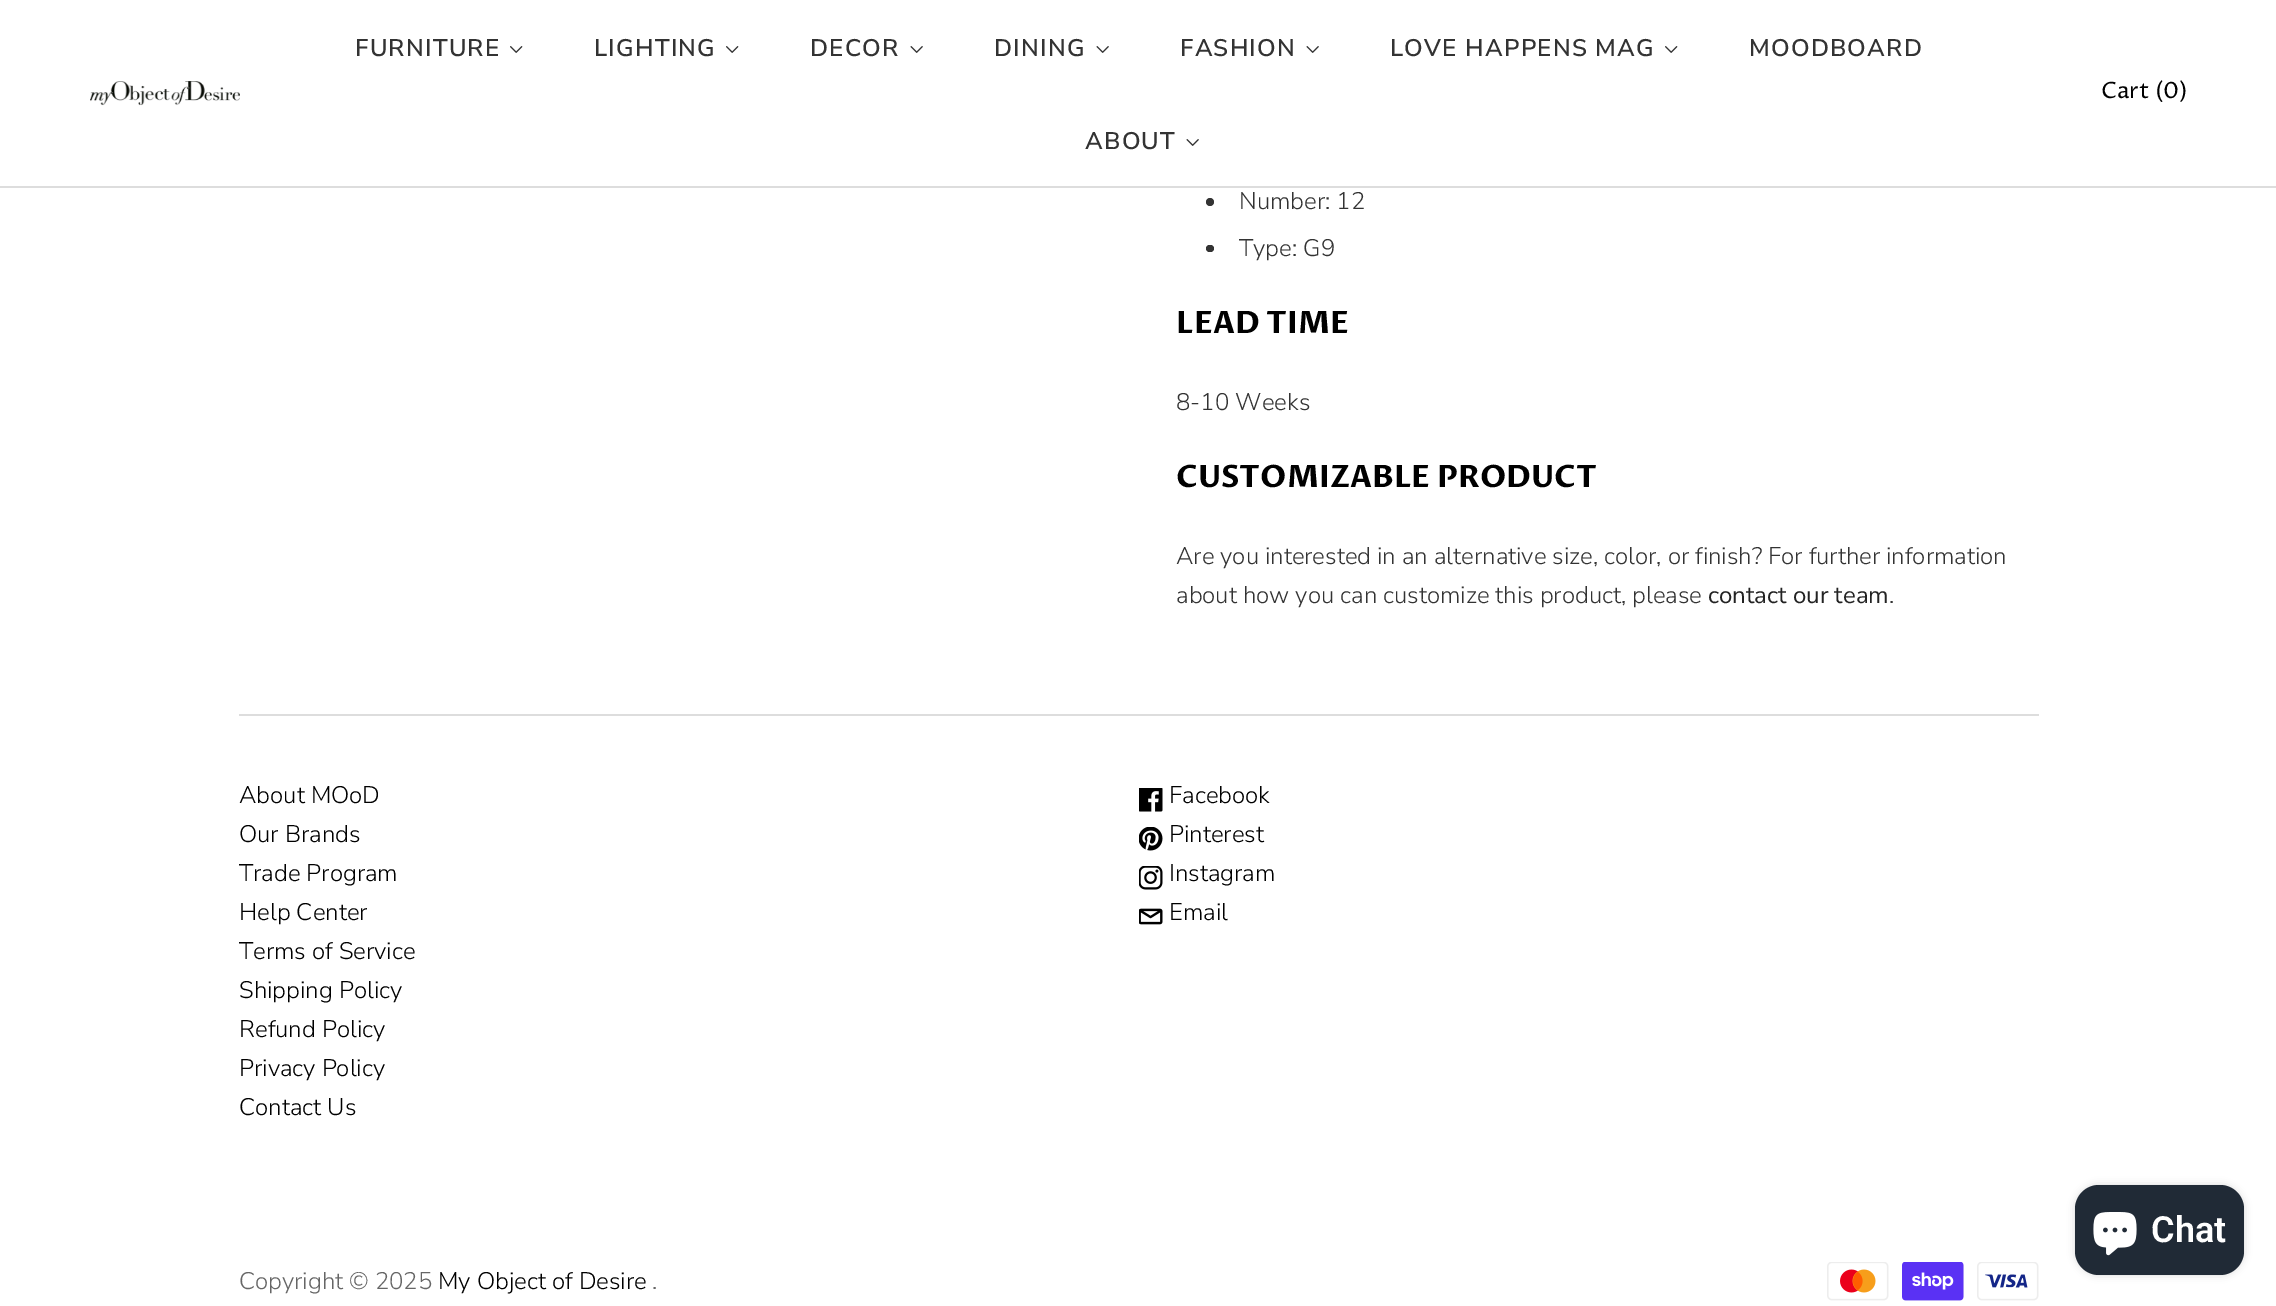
%!PS
<< /PageSize [2276 1306] /PageUsesTransparency true >> setpagedevice
/alpha { dup .setfillconstantalpha .setstrokeconstantalpha } def
/roundrect { 5 dict begin { /r /h /w /y /x } { exch def } forall
  x r add y moveto x w add y 2 copy h add r arct x w add y h add x 1 index r arct
  x y h add x y r arct x y 2 copy exch w add exch r arct closepath end } def
/shadow { 12 dict begin { /a /b /q /h /w /y /x } { exch def } forall gsave /was 0 def
  9 -2 -9 { dup b mul 4 div /e exch def 1 sub .425 mul 2.718 exch exp 1 add a .99 .min exch div /now exch def
    1 1 now sub 1 was sub div sub alpha /was now def
    w h .min e 2 mul add 0 gt { x e sub y e sub w e 2 mul add h e 2 mul add
      q e add b .6 mul add w h .min 2 div e add .min 0 .max roundrect fill } if } for grestore end } def
/picture { 5 dict begin { /h /w /y /x /name } { exch def } forall
  gsave x y translate w h scale
  w h 8 [w 0 0 h 0 0] name (r) file false 3 colorimage grestore end } def
0 .pushpdf14devicefilter
0 1306 translate 1 -1 scale
4 setmiterlimit
1 setgray
0 0 2276 1306 rectfill
0.867 setgray
0 186 2276 2 rectfill
(img1.rgb) 90 81 150 25 picture
/NunitoSans-SemiBold [24 0 0 -24 0 0] selectfont
0.2 setgray
355 56 moveto 1.25 0 (FURNITURE) ashow
(img2.rgb) 510 46 13 7 picture
594 56 moveto 1.25 0 (LIGHTING) ashow
(img2.rgb) 726 46 13 7 picture
810 56 moveto 1.25 0 (DECOR) ashow
(img3.rgb) 910 46 13 7 picture
994 56 moveto 1.25 0 (DINING) ashow
(img3.rgb) 1096 46 13 7 picture
1180 56 moveto 1.25 0 (FASHION) ashow
(img3.rgb) 1306 46 13 7 picture
1390 56 moveto 1.25 0 (LOVE HAPPENS MAG) ashow
(img2.rgb) 1665 46 13 7 picture
1749 56 moveto 1.25 0 (MOODBOARD) ashow
1085 149 moveto 1.25 0 (ABOUT) ashow
(img3.rgb) 1186 139 13 7 picture
/ProzaLibre-Regular [22.5 0 0 -22.5 0 0] selectfont
0 setgray
2101 98 moveto (Cart \(0\)) show
0.2 setgray
newpath 1210 202 4 0 360 arc closepath fill
/NunitoSans-Light [24 0 0 -24 0 0] selectfont
1239 209 moveto (Number: 12) show
1206 245 8 7 3.5 roundrect fill
1239 256 moveto (Type: G9) show
/ProzaLibre-Bold [30.9 0 0 -30.9 0 0] selectfont
0 setgray
1176 333 moveto (LEAD TIME) show
/NunitoSans-Light [24 0 0 -24 0 0] selectfont
0.2 setgray
1176 410 moveto (8-10 Weeks) show
/ProzaLibre-Bold [30.9 0 0 -30.9 0 0] selectfont
0 setgray
1176 487 moveto (CUSTOMIZABLE PRODUCT) show
/NunitoSans-Light [24 0 0 -24 0 0] selectfont
0.2 setgray
1176 564 moveto (Are you interested in an alternative size, color, or finish? For further information) show
1176 603 moveto (about how you can customize this product, please) show
/NunitoSans-Regular [24 0 0 -24 0 0] selectfont
0.137 setgray
1708 603 moveto (contact our team) show
/NunitoSans-Light [24 0 0 -24 0 0] selectfont
0.2 setgray
1889 603 moveto (.) show
0.867 setgray
239 714 1800 2 rectfill
0 setgray
239 803 moveto (About MOoD) show
239 842 moveto (Our Brands) show
239 881 moveto (Trade Program) show
239 920 moveto (Help Center) show
239 959 moveto (Terms of Service) show
239 998 moveto (Shipping Policy) show
239 1037 moveto (Refund Policy) show
239 1076 moveto (Privacy Policy) show
239 1115 moveto (Contact Us) show
(img4.rgb) 1139 788 24 24 picture
1169 803 moveto (Facebook) show
(img5.rgb) 1139 827 24 24 picture
1169 842 moveto (Pinterest) show
(img6.rgb) 1139 866 24 24 picture
1169 881 moveto (Instagram) show
(img7.rgb) 1139 908 24 17 picture
1169 920 moveto (Email) show
0.4 setgray
239 1289 moveto (Copyright © 2025) show
0 setgray
438 1289 moveto (My Object of Desire) show
0.4 setgray
652 1289 moveto (.) show
(img8.rgb) 1827 1262 62 39 picture
(img9.rgb) 1902 1262 62 39 picture
(img10.rgb) 1977 1262 62 39 picture
0 setgray
2075 1185 169 90 24 4 0.15 shadow
0.125 0.165 0.212 setrgbcolor
2075 1185 169 90 24 roundrect fill
(img11.rgb) 2093 1212 44 44 picture
/Roboto-SemiBold [36 0 0 -36 0 0] selectfont
1 setgray
2151 1242 moveto (Chat) show
.poppdf14devicefilter showpage
